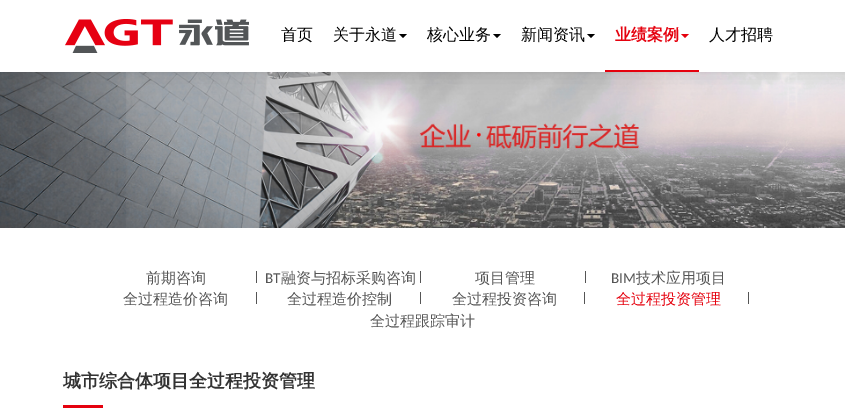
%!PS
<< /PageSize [845 414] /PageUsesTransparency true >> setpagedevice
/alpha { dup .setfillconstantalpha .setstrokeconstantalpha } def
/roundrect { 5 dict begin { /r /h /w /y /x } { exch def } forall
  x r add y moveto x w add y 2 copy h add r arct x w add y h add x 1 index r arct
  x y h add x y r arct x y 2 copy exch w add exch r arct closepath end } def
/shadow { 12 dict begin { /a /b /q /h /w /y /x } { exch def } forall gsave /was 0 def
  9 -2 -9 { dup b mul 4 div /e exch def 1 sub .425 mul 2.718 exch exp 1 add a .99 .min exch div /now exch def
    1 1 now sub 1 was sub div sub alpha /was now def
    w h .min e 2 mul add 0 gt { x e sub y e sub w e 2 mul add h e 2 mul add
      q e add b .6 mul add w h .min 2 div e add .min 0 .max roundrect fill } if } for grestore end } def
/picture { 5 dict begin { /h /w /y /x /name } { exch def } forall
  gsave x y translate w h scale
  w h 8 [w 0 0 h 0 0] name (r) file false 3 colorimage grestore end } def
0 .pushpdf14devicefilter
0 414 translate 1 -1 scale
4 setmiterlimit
1 setgray
0 0 845 414 rectfill
(img2.rgb) 0 72 845 156 picture
0 setgray
-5 -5 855 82 0 10 0.1 shadow
1 setgray
0 0 845 72 rectfill
(img1.rgb) 65 19 184 34 picture
/WenQuanYiZenHei-Medium [16 0 0 -16 0 0] selectfont
0 setgray
281 40 moveto (首页) show
333 40 moveto (关于永道) show
newpath 399 34 moveto 407 34 lineto 403 38 lineto closepath fill
427 40 moveto (核心业务) show
newpath 493 34 moveto 501 34 lineto 497 38 lineto closepath fill
521 40 moveto (新闻资讯) show
newpath 587 34 moveto 595 34 lineto 591 38 lineto closepath fill
0.898 0.004 0.055 setrgbcolor
605 70 94 2 rectfill
/WenQuanYiZenHei-Bold [16 0 0 -16 0 0] selectfont
615 40 moveto (业绩案例) show
newpath 681 34 moveto 689 34 lineto 685 38 lineto closepath fill
/WenQuanYiZenHei-Medium [16 0 0 -16 0 0] selectfont
0 setgray
709 40 moveto (人才招聘) show
/WenQuanYiZenHei-Medium [15 0 0 -15 0 0] selectfont
0.333 setgray
146 283 moveto (前期咨询) show
256 271 1 12 rectfill
/Carlito-Regular [15 0 0 -15 0 0] selectfont
265 283 moveto (BT) show
/WenQuanYiZenHei-Medium [15 0 0 -15 0 0] selectfont
281 283 moveto (融资与招标采购咨询) show
420 271 1 12 rectfill
475 283 moveto (项目管理) show
585 271 1 12 rectfill
/Carlito-Regular [15 0 0 -15 0 0] selectfont
611 283 moveto (BIM) show
/WenQuanYiZenHei-Medium [15 0 0 -15 0 0] selectfont
636 283 moveto (技术应用项目) show
123 304 moveto (全过程造价咨询) show
256 292 1 12 rectfill
287 304 moveto (全过程造价控制) show
420 292 1 12 rectfill
452 304 moveto (全过程投资咨询) show
584 292 1 12 rectfill
0.898 0.004 0.055 setrgbcolor
616 304 moveto (全过程投资管理) show
0.333 setgray
748 292 1 12 rectfill
370 326 moveto (全过程跟踪审计) show
/WenQuanYiZenHei-Bold [18 0 0 -18 0 0] selectfont
0.2 setgray
63 387 moveto (城市综合体项目全过程投资管理) show
0.898 0.004 0.055 setrgbcolor
63 405 40 3 rectfill
.poppdf14devicefilter showpage
